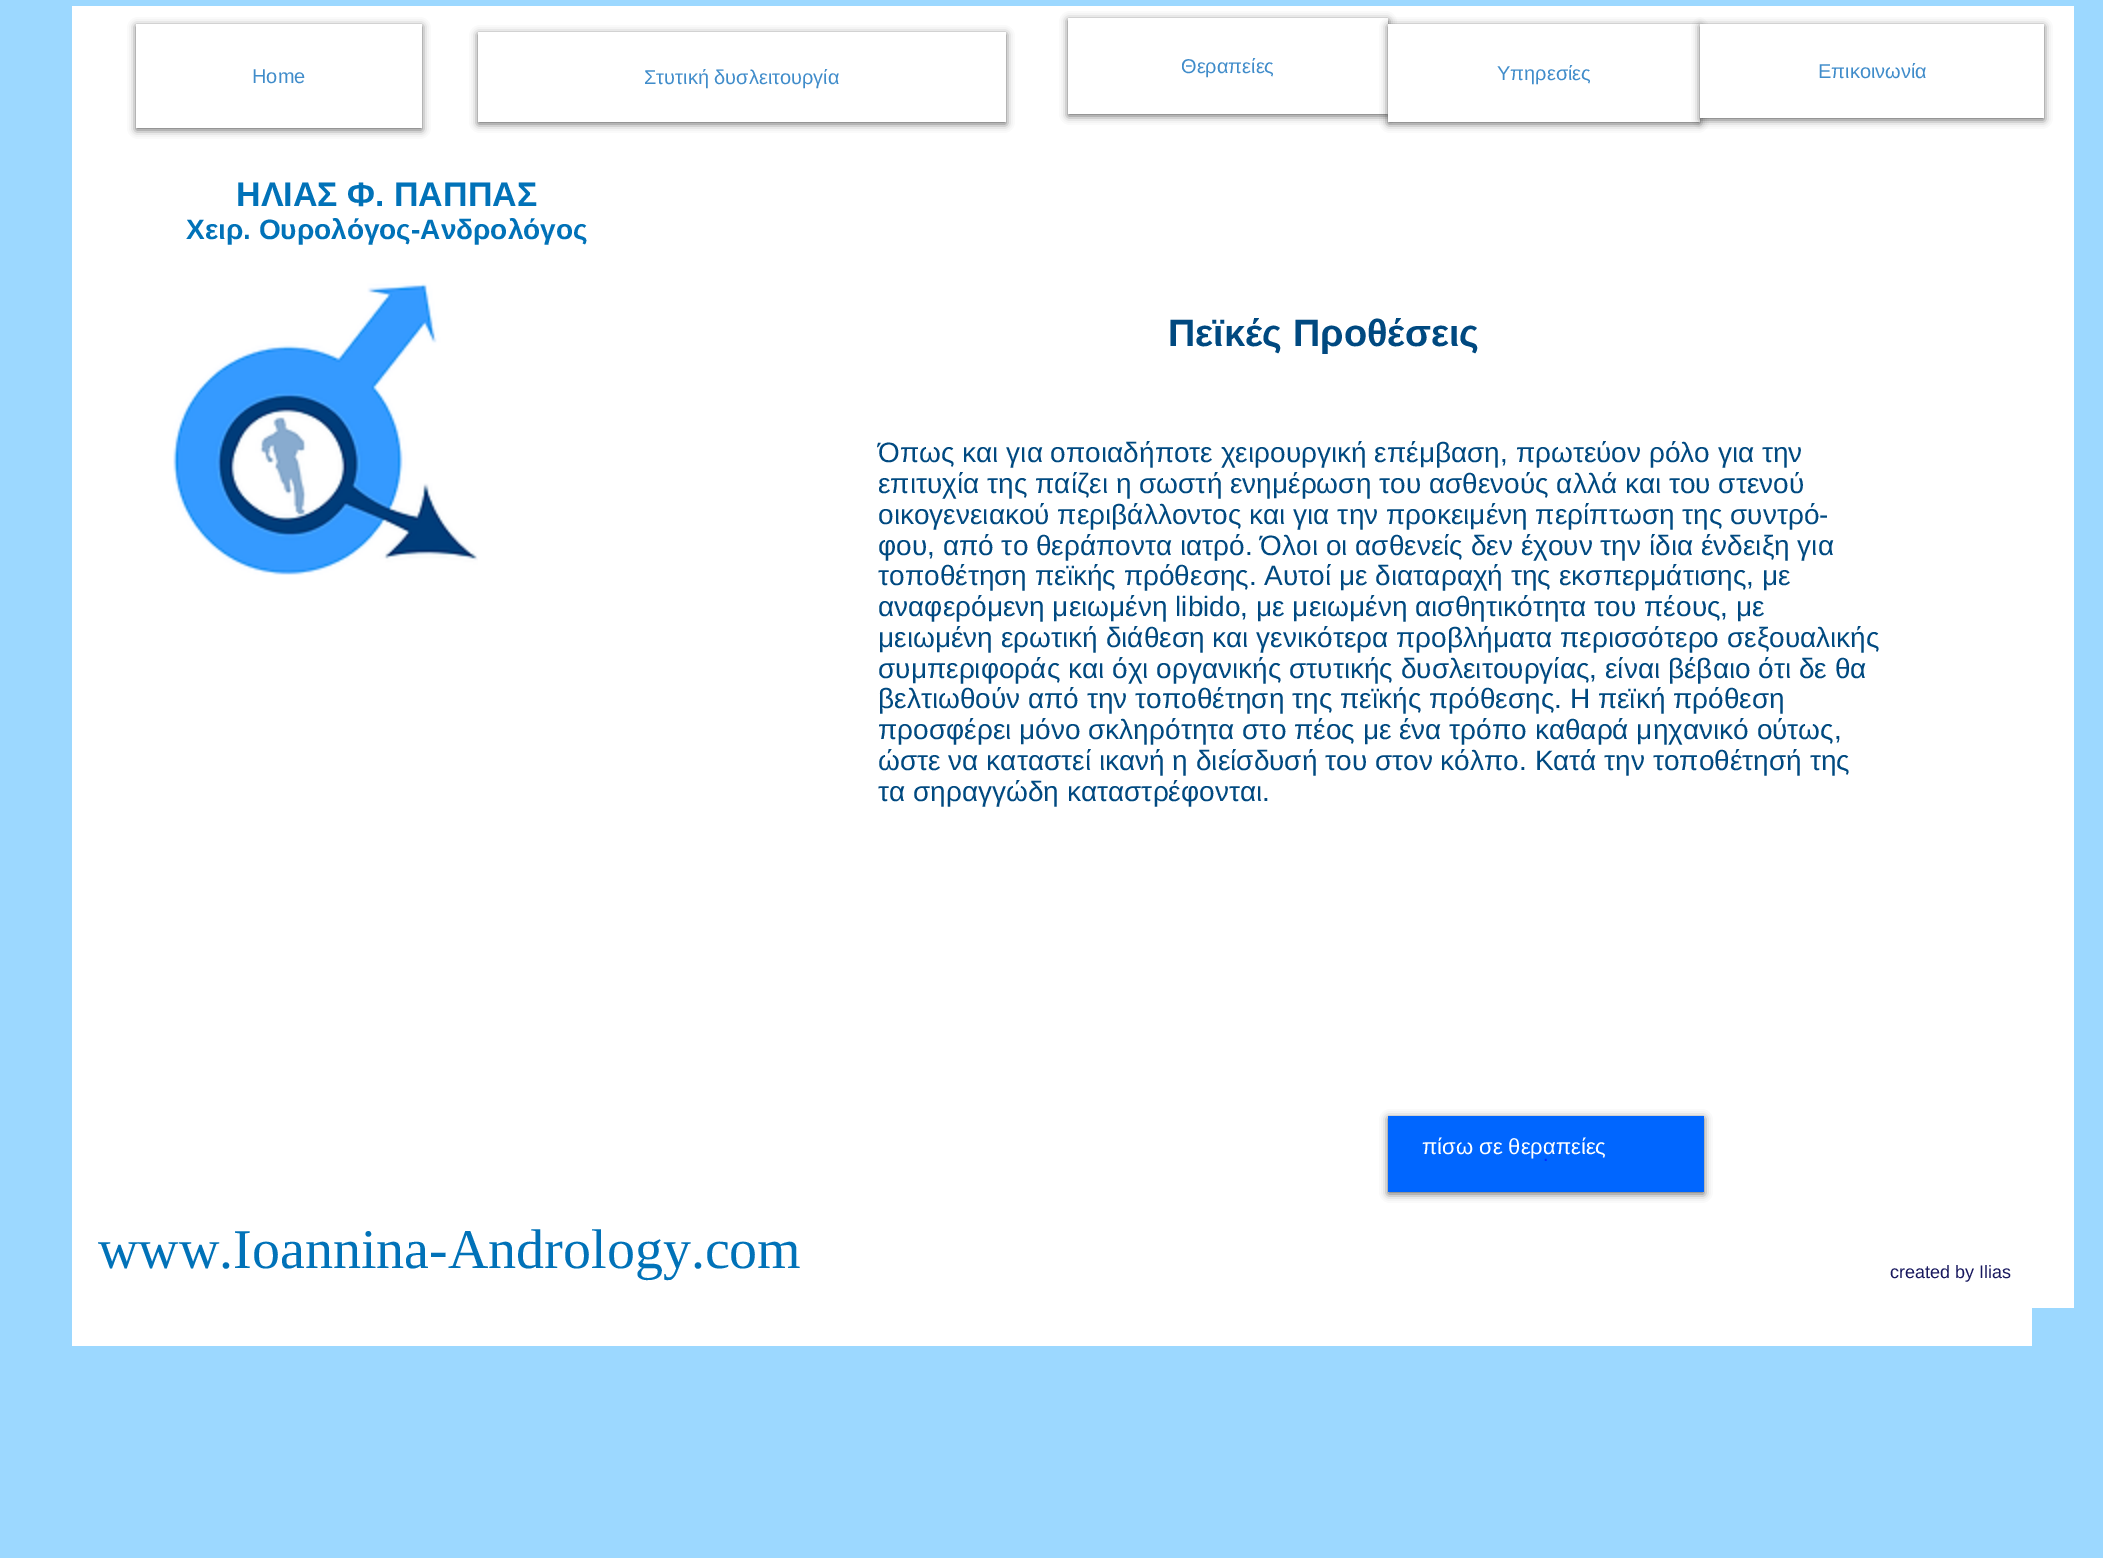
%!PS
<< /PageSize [2103 1558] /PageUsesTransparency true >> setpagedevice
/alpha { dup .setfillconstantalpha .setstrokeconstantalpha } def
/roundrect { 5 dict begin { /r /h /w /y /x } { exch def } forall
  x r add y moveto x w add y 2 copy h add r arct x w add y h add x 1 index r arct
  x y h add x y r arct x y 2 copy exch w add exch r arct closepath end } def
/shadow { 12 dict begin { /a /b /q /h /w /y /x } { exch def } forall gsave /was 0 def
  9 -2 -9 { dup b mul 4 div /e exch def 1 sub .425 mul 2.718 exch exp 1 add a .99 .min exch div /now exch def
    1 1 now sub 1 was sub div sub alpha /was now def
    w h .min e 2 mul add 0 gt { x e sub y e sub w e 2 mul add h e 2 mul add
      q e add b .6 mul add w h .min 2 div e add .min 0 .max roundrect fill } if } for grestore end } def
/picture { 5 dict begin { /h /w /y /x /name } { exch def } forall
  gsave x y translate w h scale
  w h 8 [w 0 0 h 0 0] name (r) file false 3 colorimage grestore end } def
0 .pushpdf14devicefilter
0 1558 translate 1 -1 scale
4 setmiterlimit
0.612 0.847 1 setrgbcolor
0 0 2103 1558 rectfill
1 setgray
72 6 2002 1302 rectfill
gsave
newpath 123 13 moveto 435 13 lineto 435 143 lineto 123 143 lineto closepath 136 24 moveto 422 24 lineto 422 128 lineto 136 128 lineto closepath eoclip newpath
0 setgray
136 26 286 104 0 4 0.6 shadow
grestore
/LiberationSans-Regular [20 0 0 -20 0 0] selectfont
0.251 0.549 0.792 setrgbcolor
252 83 moveto (Home) show
gsave
newpath 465 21 moveto 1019 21 lineto 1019 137 lineto 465 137 lineto closepath 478 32 moveto 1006 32 lineto 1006 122 lineto 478 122 lineto closepath eoclip newpath
0 setgray
478 34 528 90 0 4 0.6 shadow
grestore
644 84 moveto (Στυτική δυσλειτουργία) show
gsave
newpath 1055 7 moveto 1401 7 lineto 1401 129 lineto 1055 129 lineto closepath 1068 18 moveto 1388 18 lineto 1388 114 lineto 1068 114 lineto closepath eoclip newpath
0 setgray
1068 20 320 96 0 4 0.6 shadow
grestore
1181 73 moveto (Θεραπείες) show
0 setgray
1388 26 312 98 0 4 0.6 shadow
1 setgray
1388 24 312 98 rectfill
0.251 0.549 0.792 setrgbcolor
1497 80 moveto (Υπηρεσίες) show
0 setgray
1700 26 344 94 0 4 0.6 shadow
1 setgray
1700 24 344 94 rectfill
0.251 0.549 0.792 setrgbcolor
1818 78 moveto (Επικοινωνία) show
/LiberationSans-Bold [34 0 0 -34 0 0] selectfont
0.004 0.447 0.722 setrgbcolor
236 206 moveto (ΗΛΙΑΣ Φ. ΠΑΠΠΑΣ) show
/LiberationSans-Bold [28 0 0 -28 0 0] selectfont
186 239 moveto (Χειρ. Ουρολόγος-Ανδρολόγος) show
(img1.rgb) 173 283 305 292 picture
/LiberationSans-Bold [38 0 0 -38 0 0] selectfont
0 0.286 0.502 setrgbcolor
1168 346 moveto (Πεϊκές Προθέσεις) show
/LiberationSans-Regular [28 0 0 -28 0 0] selectfont
878 462 moveto (Όπως και για οποιαδήποτε χειρουργική επέμβαση, πρωτεύον ρόλο για την) show
878 493 moveto (επιτυχία της παίζει η σωστή ενημέρωση του ασθενούς αλλά και του στενού) show
878 524 moveto (οικογενειακού περιβάλλοντος και για την προκειμένη περίπτωση της συντρό-) show
878 555 moveto (φου, από το θεράποντα ιατρό. Όλοι οι ασθενείς δεν έχουν την ίδια ένδειξη για) show
878 585 moveto (τοποθέτηση πεϊκής πρόθεσης. Αυτοί με διαταραχή της εκσπερμάτισης, με) show
878 616 moveto (αναφερόμενη μειωμένη libido, με μειωμένη αισθητικότητα του πέους, με) show
878 647 moveto (μειωμένη ερωτική διάθεση και γενικότερα προβλήματα περισσότερο σεξουαλικής) show
878 678 moveto (συμπεριφοράς και όχι οργανικής στυτικής δυσλειτουργίας, είναι βέβαιο ότι δε θα) show
878 708 moveto (βελτιωθούν από την τοποθέτηση της πεϊκής πρόθεσης. Η πεϊκή πρόθεση) show
878 739 moveto (προσφέρει μόνο σκληρότητα στο πέος με ένα τρόπο καθαρά μηχανικό ούτως,) show
878 770 moveto (ώστε να καταστεί ικανή η διείσδυσή του στον κόλπο. Κατά την τοποθέτησή της) show
878 801 moveto (τα σηραγγώδη καταστρέφονται.) show
0 setgray
1388 1118 316 76 0 4 0.6 shadow
0 0.4 1 setrgbcolor
1388 1116 316 76 rectfill
/LiberationSans-Regular [22 0 0 -22 0 0] selectfont
1 setgray
1422 1154 moveto (πίσω σε θεραπείες) show
/LiberationSans-Regular [20 0 0 -20 0 0] selectfont
0 0.18 0.996 setrgbcolor
1543 1161 moveto (.) show
/LiberationSerif-Regular [56 0 0 -56 0 0] selectfont
0.004 0.447 0.722 setrgbcolor
98 1268 moveto (www.Ioannina-Andrology.com) show
/LiberationSans-Regular [18 0 0 -18 0 0] selectfont
0.094 0.094 0.369 setrgbcolor
1890 1278 moveto (created by Ilias) show
1 setgray
72 1308 1960 38 rectfill
.poppdf14devicefilter showpage
